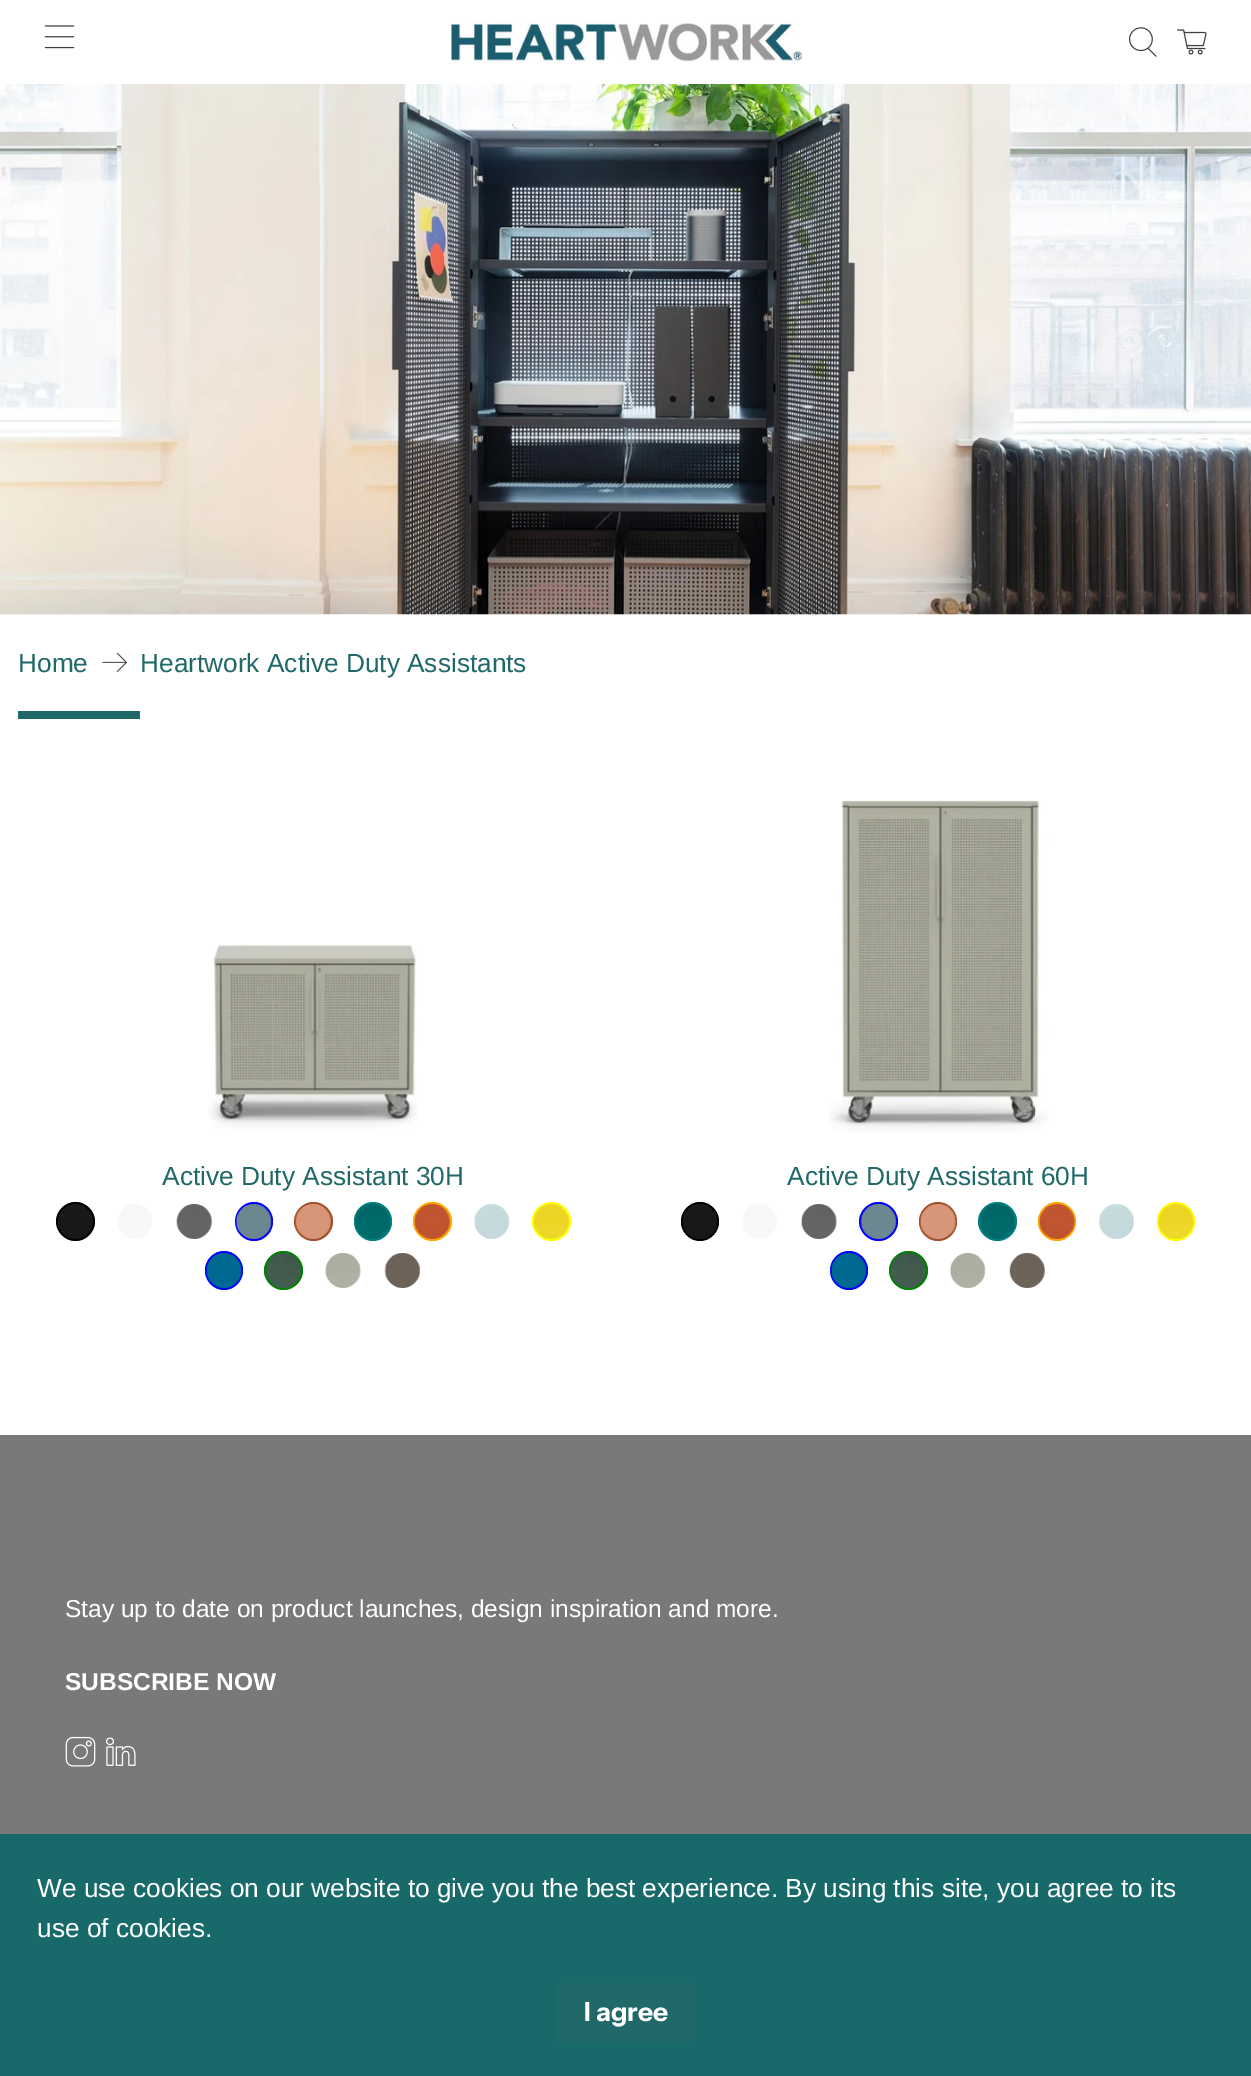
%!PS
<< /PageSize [1251 2076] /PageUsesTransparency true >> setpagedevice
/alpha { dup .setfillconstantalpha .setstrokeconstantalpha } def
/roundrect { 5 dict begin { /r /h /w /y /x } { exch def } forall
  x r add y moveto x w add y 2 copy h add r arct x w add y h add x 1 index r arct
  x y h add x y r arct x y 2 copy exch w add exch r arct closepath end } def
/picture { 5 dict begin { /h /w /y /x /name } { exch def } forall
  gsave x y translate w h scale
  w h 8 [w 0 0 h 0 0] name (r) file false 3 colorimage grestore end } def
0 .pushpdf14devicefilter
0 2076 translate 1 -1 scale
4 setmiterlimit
1 setgray
0 0 1251 2076 rectfill
(img1.rgb) 44 25 31 24 picture
(img2.rgb) 451 21 351 42 picture
(img3.rgb) 1129 27 28 30 picture
(img4.rgb) 1177 29 30 26 picture
(img5.rgb) 0 84 1251 531 picture
/LiberationSans-Regular [26.25 0 0 -26.25 0 0] selectfont
0.129 0.408 0.412 setrgbcolor
18 672 moveto (Home) show
(img6.rgb) 102 652 25 20 picture
140 672 moveto (Heartwork Active Duty Assistants) show
18 711 122 8 rectfill
(img7.rgb) 208 944 211 185 picture
162 1185 moveto (Active Duty Assistant 30H) show
0 setgray
newpath 75.5 1221.5 19.5 0 360 arc closepath fill
(img8.rgb) 58 1204 35 35 picture
(img9.rgb) 118 1204 34 35 picture
(img10.rgb) 176 1204 36 35 picture
0 0 1 setrgbcolor
235 1202 38 39 19 roundrect fill
(img11.rgb) 235 1204 37 35 picture
0.627 0.322 0.176 setrgbcolor
newpath 313.5 1221.5 19.5 0 360 arc closepath fill
(img12.rgb) 295 1204 36 35 picture
0 0.502 0.502 setrgbcolor
354 1202 38 39 19 roundrect fill
(img13.rgb) 355 1204 36 35 picture
1 0.647 0 setrgbcolor
newpath 432.5 1221.5 19.5 0 360 arc closepath fill
(img14.rgb) 414 1204 36 35 picture
(img15.rgb) 473 1204 37 35 picture
1 1 0 setrgbcolor
newpath 551.5 1221.5 19.5 0 360 arc closepath fill
(img16.rgb) 533 1204 36 35 picture
0 0 1 setrgbcolor
205 1251 38 39 19 roundrect fill
(img17.rgb) 206 1253 36 35 picture
0 0.502 0 setrgbcolor
newpath 283.5 1270.5 19.5 0 360 arc closepath fill
(img18.rgb) 265 1253 36 35 picture
(img19.rgb) 325 1253 36 35 picture
(img20.rgb) 384 1253 37 35 picture
(img21.rgb) 828 800 221 332 picture
0.129 0.408 0.412 setrgbcolor
787 1185 moveto (Active Duty Assistant 60H) show
0 setgray
681 1202 38 39 19 roundrect fill
(img22.rgb) 682 1204 36 35 picture
(img23.rgb) 742 1204 35 35 picture
(img24.rgb) 801 1204 36 35 picture
0 0 1 setrgbcolor
newpath 878.5 1221.5 19.5 0 360 arc closepath fill
(img25.rgb) 860 1204 37 35 picture
0.627 0.322 0.176 setrgbcolor
919 1202 38 39 19 roundrect fill
(img26.rgb) 920 1204 36 35 picture
0 0.502 0.502 setrgbcolor
newpath 997.5 1221.5 19.5 0 360 arc closepath fill
(img27.rgb) 980 1204 35 35 picture
1 0.647 0 setrgbcolor
1038 1202 38 39 19 roundrect fill
(img28.rgb) 1039 1204 36 35 picture
(img29.rgb) 1098 1204 36 35 picture
1 1 0 setrgbcolor
1157 1202 38 39 19 roundrect fill
(img30.rgb) 1158 1204 36 35 picture
0 0 1 setrgbcolor
830 1251 38 39 19 roundrect fill
(img31.rgb) 830 1253 37 35 picture
0 0.502 0 setrgbcolor
newpath 908.5 1270.5 19.5 0 360 arc closepath fill
(img32.rgb) 890 1253 36 35 picture
(img33.rgb) 949 1253 37 35 picture
(img34.rgb) 1009 1253 36 35 picture
0.475 setgray
0 1435 1251 641 rectfill
/LiberationSans-Regular [24.5 0 0 -24.5 0 0] selectfont
1 setgray
65 1617 moveto (Stay up to date on product launches, design inspiration and more.) show
/LiberationSans-Bold [24.5 0 0 -24.5 0 0] selectfont
65 1690 moveto (SUBSCRIBE NOW) show
(img35.rgb) 65 1736 31 31 picture
(img36.rgb) 105 1737 31 29 picture
0.8 alpha
0 0.4 0.4 setrgbcolor
0 1834 1251 242 rectfill
/LiberationSans-Regular [26.25 0 0 -26.25 0 0] selectfont
1 alpha
1 setgray
37 1897 moveto (We use cookies on our website to give you the best experience. By using this site, you agree to its) show
37 1937 moveto (use of cookies.) show
0.129 0.408 0.412 setrgbcolor
557 1983 138 59 7 roundrect fill
/InstrumentSans-Bold [26.25 0 0 -26.25 0 0] selectfont
1 setgray
584 2021 moveto (I agree) show
.poppdf14devicefilter showpage
